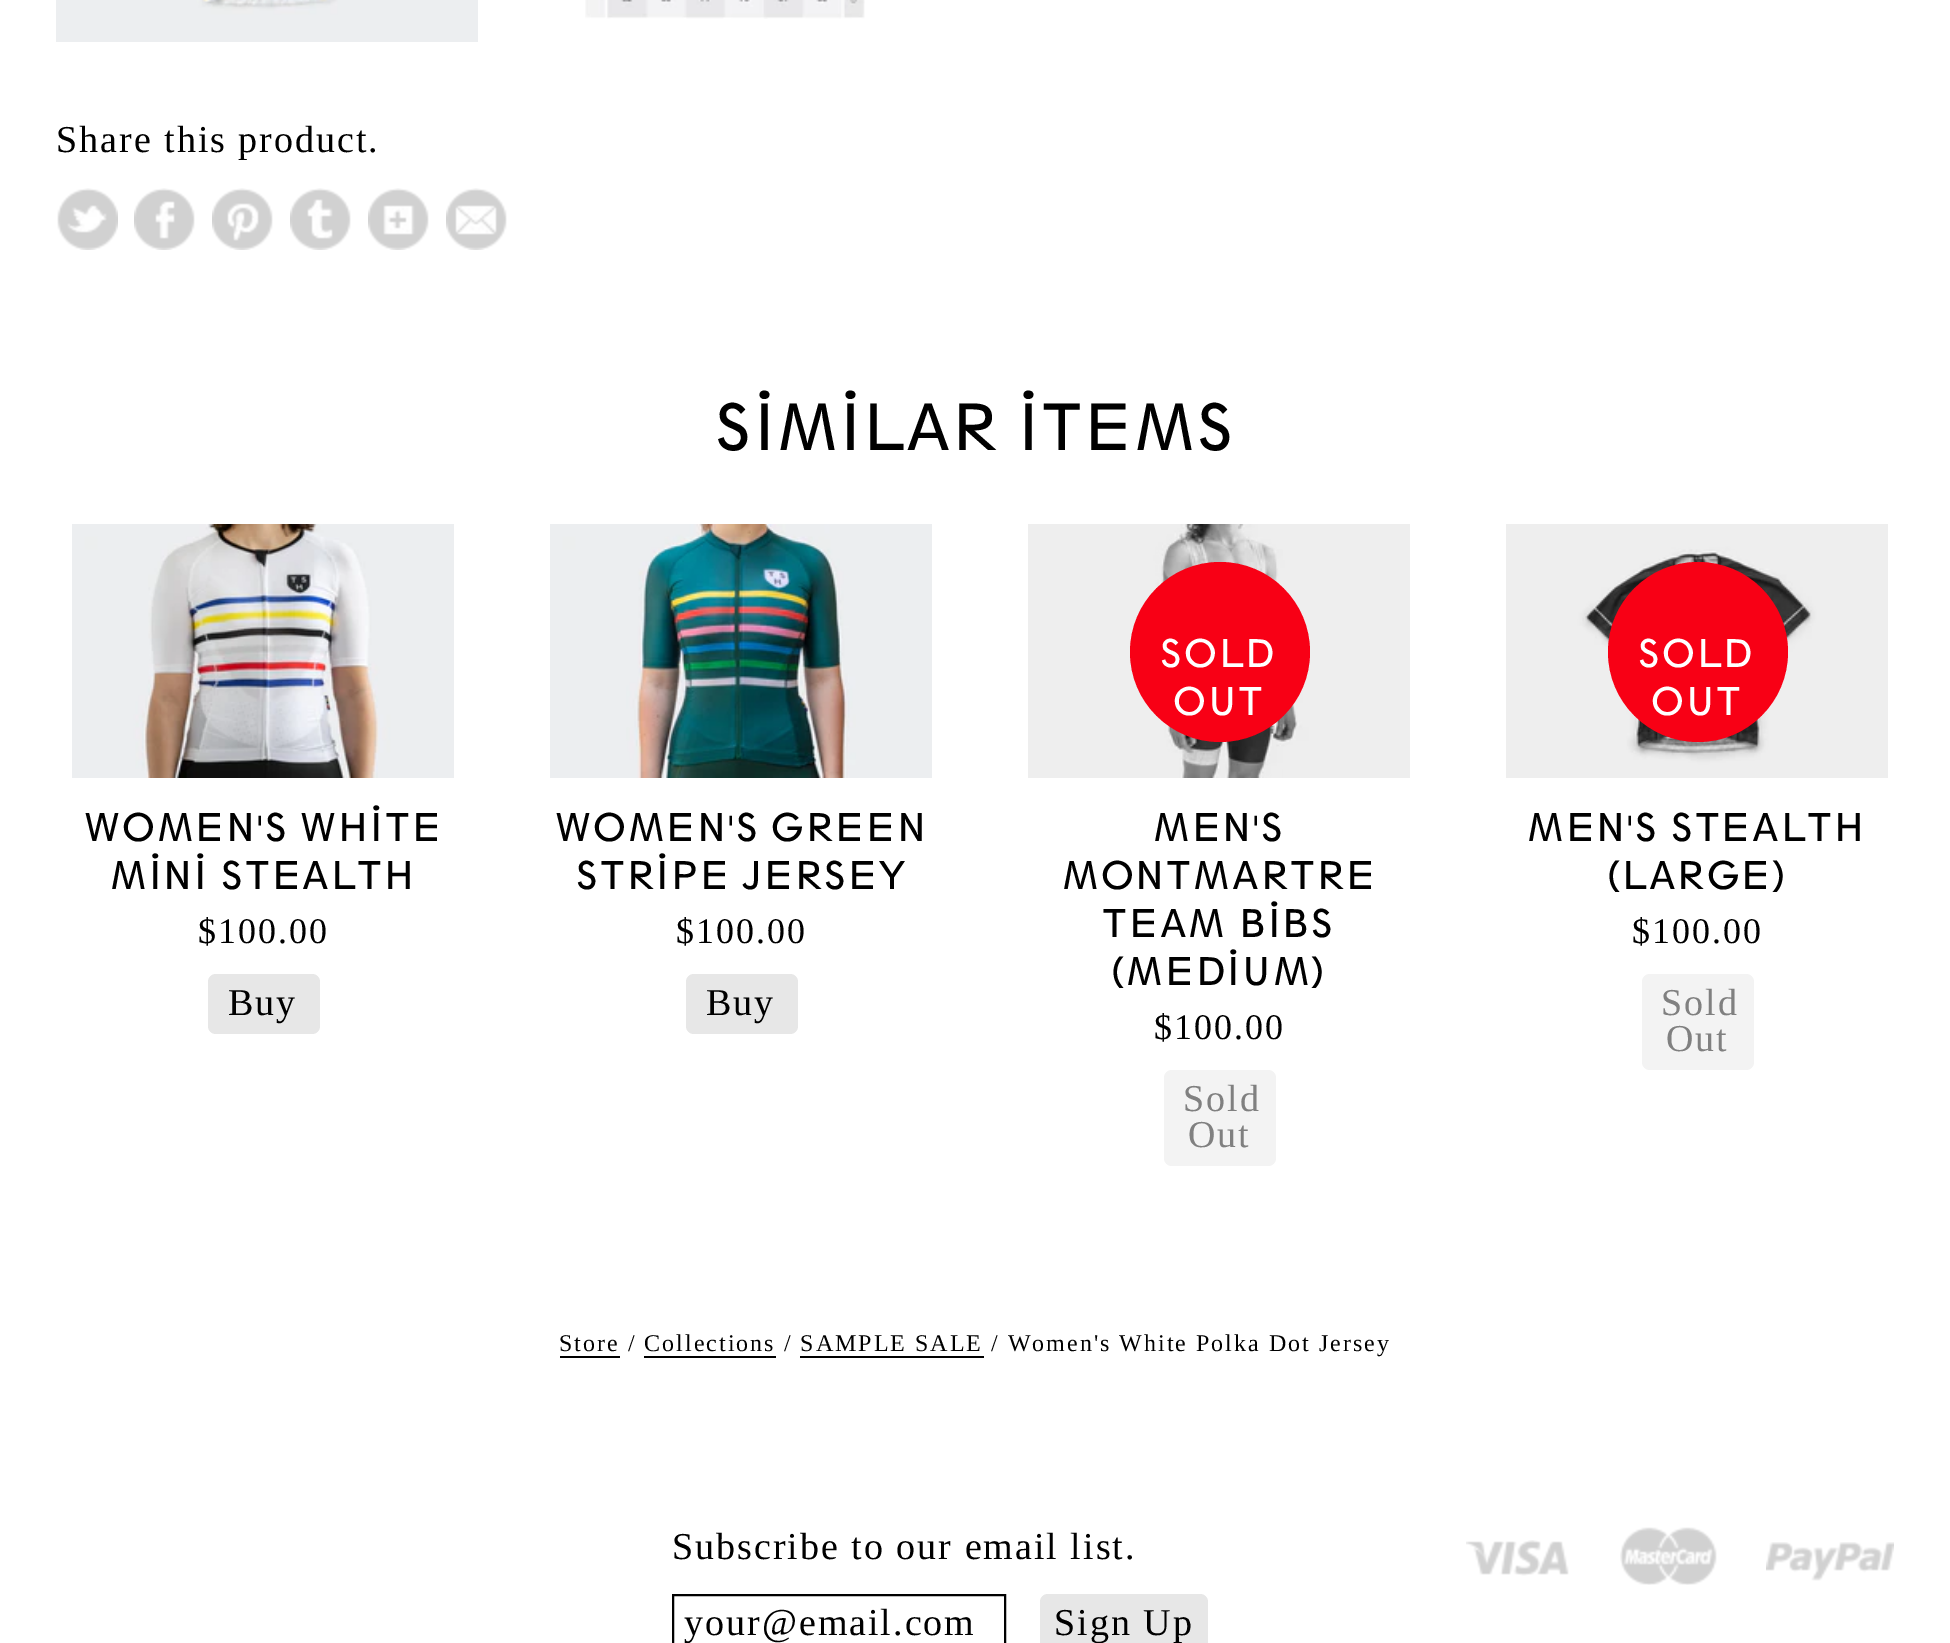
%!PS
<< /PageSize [1950 1643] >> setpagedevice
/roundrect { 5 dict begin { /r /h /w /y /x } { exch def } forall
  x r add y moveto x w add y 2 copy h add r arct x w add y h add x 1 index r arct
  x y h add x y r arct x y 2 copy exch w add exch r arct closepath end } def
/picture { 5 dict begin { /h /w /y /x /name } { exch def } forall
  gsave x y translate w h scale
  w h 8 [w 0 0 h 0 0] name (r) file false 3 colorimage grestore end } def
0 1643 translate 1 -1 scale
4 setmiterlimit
1 setgray
0 0 1950 1643 rectfill
(img1.rgb) 56 0 422 42 picture
(img2.rgb) 585 0 280 19 picture
/LiberationSerif-Regular [38 0 0 -38 0 0] selectfont
0 setgray
56 152 moveto 2 0 (Share this product.) ashow
(img3.rgb) 57 188 61 62 picture
(img4.rgb) 134 188 61 62 picture
(img5.rgb) 212 188 61 62 picture
(img6.rgb) 290 188 61 62 picture
(img7.rgb) 368 188 61 62 picture
(img8.rgb) 446 188 61 62 picture
/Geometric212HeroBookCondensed-Regular [60 0 0 -60 0 0] selectfont
715 450 moveto 2 0 (SIMILAR ITEMS) ashow
(img9.rgb) 72 524 382 254 picture
/Geometric212HeroBookCondensed-Regular [36 0 0 -36 0 0] selectfont
84 841 moveto 2 0 (WOMEN'S WHITE) ashow
110 889 moveto 2 0 (MINI STEALTH) ashow
/LiberationSerif-Regular [36 0 0 -36 0 0] selectfont
198 943 moveto 2 0 ($100.00) ashow
0.906 setgray
208 974 112 60 8 roundrect fill
/LiberationSerif-Regular [38 0 0 -38 0 0] selectfont
0 setgray
228 1015 moveto 2 0 (Buy) ashow
(img10.rgb) 550 524 382 254 picture
/Geometric212HeroBookCondensed-Regular [36 0 0 -36 0 0] selectfont
555 841 moveto 2 0 (WOMEN'S GREEN) ashow
576 889 moveto 2 0 (STRIPE JERSEY) ashow
/LiberationSerif-Regular [36 0 0 -36 0 0] selectfont
676 943 moveto 2 0 ($100.00) ashow
0.906 setgray
686 974 112 60 8 roundrect fill
/LiberationSerif-Regular [38 0 0 -38 0 0] selectfont
0 setgray
706 1015 moveto 2 0 (Buy) ashow
(img11.rgb) 1028 524 382 254 picture
0.973 0 0.082 setrgbcolor
newpath 1220 652 90 0 360 arc closepath fill
/Geometric212HeroBookCondensed-Regular [36 0 0 -36 0 0] selectfont
1 setgray
1160 667 moveto 2 0 (SOLD) ashow
1173 715 moveto 2 0 (OUT) ashow
0 setgray
1153 841 moveto 2 0 (MEN'S) ashow
1062 889 moveto 2 0 (MONTMARTRE) ashow
1102 937 moveto 2 0 (TEAM BIBS) ashow
1109 985 moveto 2 0 (\(MEDIUM\)) ashow
/LiberationSerif-Regular [36 0 0 -36 0 0] selectfont
1154 1039 moveto 2 0 ($100.00) ashow
0.953 setgray
1164 1070 112 96 8 roundrect fill
/LiberationSerif-Regular [38 0 0 -38 0 0] selectfont
0.502 setgray
1183 1111 moveto 2 0 (Sold) ashow
1188 1147 moveto 2 0 (Out) ashow
(img12.rgb) 1506 524 382 254 picture
0.973 0 0.082 setrgbcolor
newpath 1698 652 90 0 360 arc closepath fill
/Geometric212HeroBookCondensed-Regular [36 0 0 -36 0 0] selectfont
1 setgray
1638 667 moveto 2 0 (SOLD) ashow
1651 715 moveto 2 0 (OUT) ashow
0 setgray
1527 841 moveto 2 0 (MEN'S STEALTH) ashow
1605 889 moveto 2 0 (\(LARGE\)) ashow
/LiberationSerif-Regular [36 0 0 -36 0 0] selectfont
1632 943 moveto 2 0 ($100.00) ashow
0.953 setgray
1642 974 112 96 8 roundrect fill
/LiberationSerif-Regular [38 0 0 -38 0 0] selectfont
0.502 setgray
1661 1015 moveto 2 0 (Sold) ashow
1666 1051 moveto 2 0 (Out) ashow
0 setgray
560 1356 60 2 rectfill
/LiberationSerif-Regular [24 0 0 -24 0 0] selectfont
559 1351 moveto 2 0 (Store / Collections / SAMPLE SALE / Women's White Polka Dot Jersey) ashow
644 1356 132 2 rectfill
800 1356 184 2 rectfill
/LiberationSerif-Regular [38 0 0 -38 0 0] selectfont
672 1559 moveto 2 0 (Subscribe to our email list.) ashow
2 setlinewidth
673 1595 332 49 rectstroke
684 1635 moveto 2 0 (your@email.com) ashow
0.906 setgray
1040 1594 168 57 8 roundrect fill
0 setgray
1054 1635 moveto 2 0 (Sign Up) ashow
(img13.rgb) 1466 1540 103 36 picture
(img14.rgb) 1620 1527 97 58 picture
(img15.rgb) 1766 1542 128 39 picture
showpage
